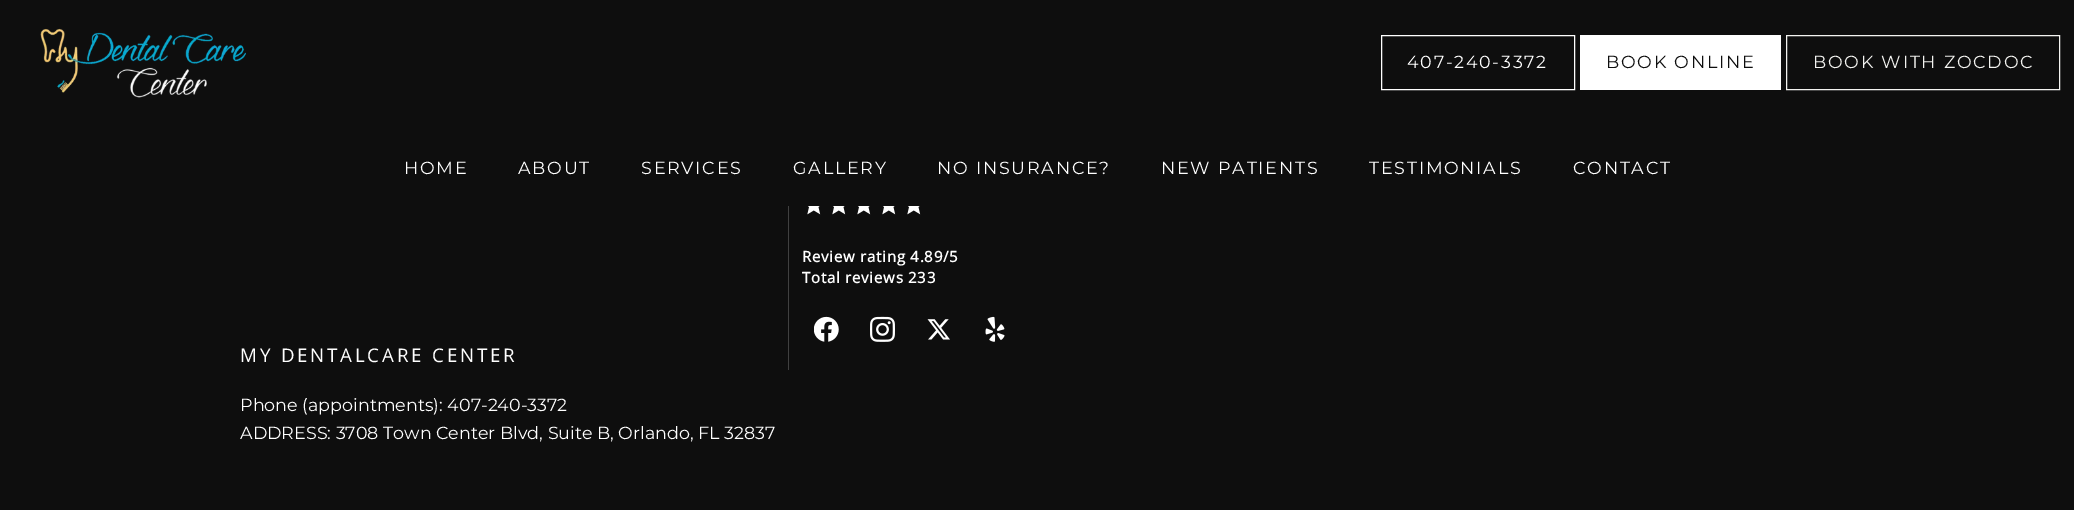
%!PS
<< /PageSize [2074 510] >> setpagedevice
/picture { 5 dict begin { /h /w /y /x /name } { exch def } forall
  gsave x y translate w h scale
  w h 8 [w 0 0 h 0 0] name (r) file false 3 colorimage grestore end } def
0 510 translate 1 -1 scale
4 setmiterlimit
0.055 setgray
0 0 2074 510 rectfill
(img1.rgb) 40 28 206 70 picture
1 setgray
1381.5 35.5 193 54 rectstroke
/Montserrat-Thin [17.5 0 0 -17.5 0 0] selectfont
1407 68 moveto 1.75 0 (407-240-3372) ashow
1580 35 201 55 rectfill
0.055 setgray
1606 68 moveto 1.75 0 (BOOK ONLINE) ashow
0.953 0.953 0.941 setrgbcolor
1786.5 35.5 273 54 rectstroke
1813 68 moveto 1.75 0 (BOOK WITH ZOCDOC) ashow
1 setgray
404 174 moveto 1.75 0 (HOME) ashow
518 174 moveto 1.75 0 (ABOUT) ashow
641 174 moveto 1.75 0 (SERVICES) ashow
793 174 moveto 1.75 0 (GALLERY) ashow
937 174 moveto 1.75 0 (NO INSURANCE?) ashow
1161 174 moveto 1.75 0 (NEW PATIENTS) ashow
1369 174 moveto 1.75 0 (TESTIMONIALS) ashow
1573 174 moveto 1.75 0 (CONTACT) ashow
0.251 setgray
788 206 1 164 rectfill
(img2.rgb) 807 206 14 9 picture
(img2.rgb) 832 206 14 9 picture
(img2.rgb) 857 206 14 9 picture
(img2.rgb) 882 206 14 9 picture
(img2.rgb) 907 206 14 9 picture
/OpenSans-Bold [15 0 0 -15 0 0] selectfont
1 setgray
802 262 moveto 0.75 0 (Review rating 4.89/5) ashow
802 283 moveto 0.75 0 (Total reviews 233) ashow
(img3.rgb) 814 316 25 26 picture
(img4.rgb) 870 316 25 26 picture
(img5.rgb) 927 319 23 21 picture
(img6.rgb) 985 316 20 26 picture
/OpenSans-Regular [18.75 0 0 -18.75 0 0] selectfont
240 362 moveto 2.8 0 (MY DENTALCARE CENTER) ashow
/Montserrat-Thin [17.5 0 0 -17.5 0 0] selectfont
240 411 moveto (Phone \(appointments\): 407-240-3372) show
240 439 moveto (ADDRESS: 3708 Town Center Blvd, Suite B, Orlando, FL 32837) show
showpage
